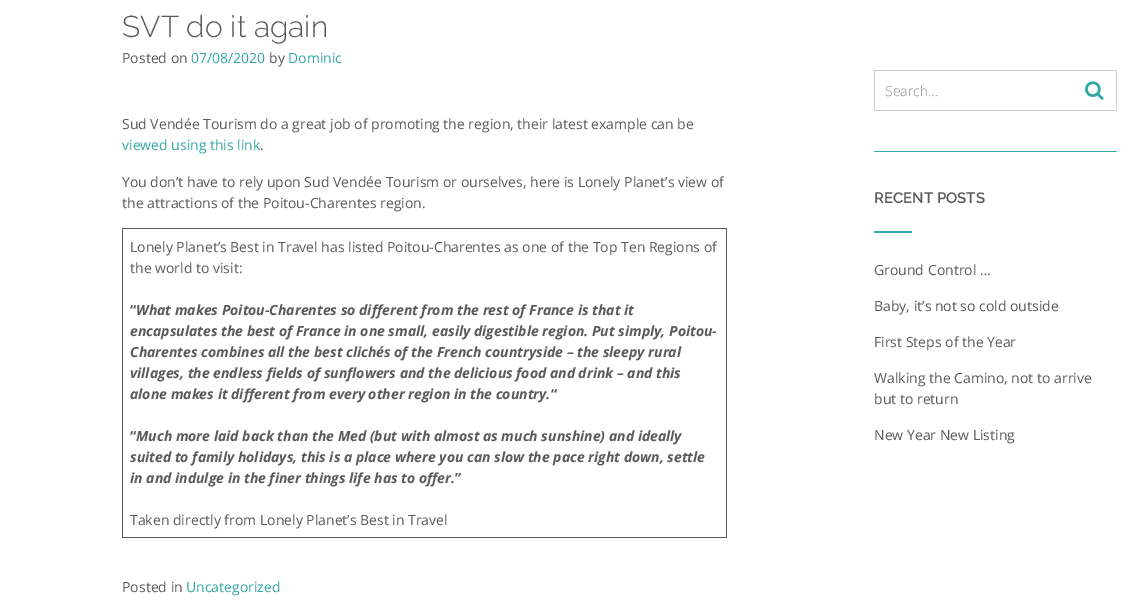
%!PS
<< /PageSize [1139 602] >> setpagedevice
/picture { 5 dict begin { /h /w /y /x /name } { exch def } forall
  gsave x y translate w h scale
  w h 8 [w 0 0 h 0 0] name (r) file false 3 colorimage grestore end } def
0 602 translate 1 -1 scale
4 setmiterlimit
1 setgray
0 0 1139 602 rectfill
/Raleway-Light [30 0 0 -30 0 0] selectfont
0.353 setgray
122 37 moveto (SVT do it again) show
/OpenSans-Regular [14 0 0 -14 0 0] selectfont
122 63 moveto (Posted on) show
0.2 0.655 0.643 setrgbcolor
191 63 moveto (07/08/2020) show
0.353 setgray
269 63 moveto (by) show
0.2 0.655 0.643 setrgbcolor
288 63 moveto (Dominic) show
0.353 setgray
122 129 moveto (Sud Vendée Tourism do a great job of promoting the region, their latest example can be) show
0.2 0.655 0.643 setrgbcolor
122 150 moveto (viewed using this link) show
0.353 setgray
260 150 moveto (.) show
122 187 moveto (You don’t have to rely upon Sud Vendée Tourism or ourselves, here is Lonely Planet’s view of) show
122 208 moveto (the attractions of the Poitou-Charentes region.) show
122 228 605 1 rectfill
726 228 1 310 rectfill
122 537 605 1 rectfill
122 228 1 310 rectfill
130 252 moveto (Lonely Planet’s Best in Travel has listed Poitou-Charentes as one of the Top Ten Regions of) show
130 273 moveto (the world to visit:) show
/OpenSans-Bold [14 0 0 -14 0 0] selectfont
130 315 moveto (“) show
/OpenSans-BoldItalic [14 0 0 -14 0 0] selectfont
136 315 moveto (What makes Poitou-Charentes so different from the rest of France is that it) show
130 336 moveto (encapsulates the best of France in one small, easily digestible region. Put simply, Poitou-) show
130 357 moveto (Charentes combines all the best clichés of the French countryside – the sleepy rural) show
130 378 moveto (villages, the endless fields of sunflowers and the delicious food and drink – and this) show
130 399 moveto (alone makes it different from every other region in the country.) show
/OpenSans-Bold [14 0 0 -14 0 0] selectfont
551 399 moveto (“) show
130 441 moveto (“) show
/OpenSans-BoldItalic [14 0 0 -14 0 0] selectfont
136 441 moveto (Much more laid back than the Med \(but with almost as much sunshine\) and ideally) show
130 462 moveto (suited to family holidays, this is a place where you can slow the pace right down, settle) show
130 483 moveto (in and indulge in the finer things life has to offer.) show
/OpenSans-Bold [14 0 0 -14 0 0] selectfont
455 483 moveto (”) show
/OpenSans-Regular [14 0 0 -14 0 0] selectfont
130 525 moveto (Taken directly from Lonely Planet’s Best in Travel) show
122 592 moveto (Posted in) show
0.2 0.655 0.643 setrgbcolor
186 592 moveto (Uncategorized) show
874 151 243 1 rectfill
0.792 0.812 0.816 setrgbcolor
874 70 243 1 rectfill
874 110 211 1 rectfill
874 70 1 41 rectfill
/OpenSans-Light [14 0 0 -14 0 0] selectfont
0.541 0.541 0.549 setrgbcolor
885 96 moveto (Search...) show
0.792 0.812 0.816 setrgbcolor
1116 70 1 41 rectfill
1085 110 32 1 rectfill
(img1.rgb) 1085 81 19 19 picture
/Raleway-SemiBold [15 0 0 -15 0 0] selectfont
0.353 setgray
874 203 moveto (RECENT POSTS) show
0.2 0.655 0.643 setrgbcolor
874 231 38 2 rectfill
/OpenSans-Regular [14 0 0 -14 0 0] selectfont
0.353 setgray
874 275 moveto (Ground Control …) show
874 311 moveto (Baby, it’s not so cold outside) show
874 347 moveto (First Steps of the Year) show
874 383 moveto (Walking the Camino, not to arrive) show
874 404 moveto (but to return) show
874 440 moveto (New Year New Listing) show
showpage
